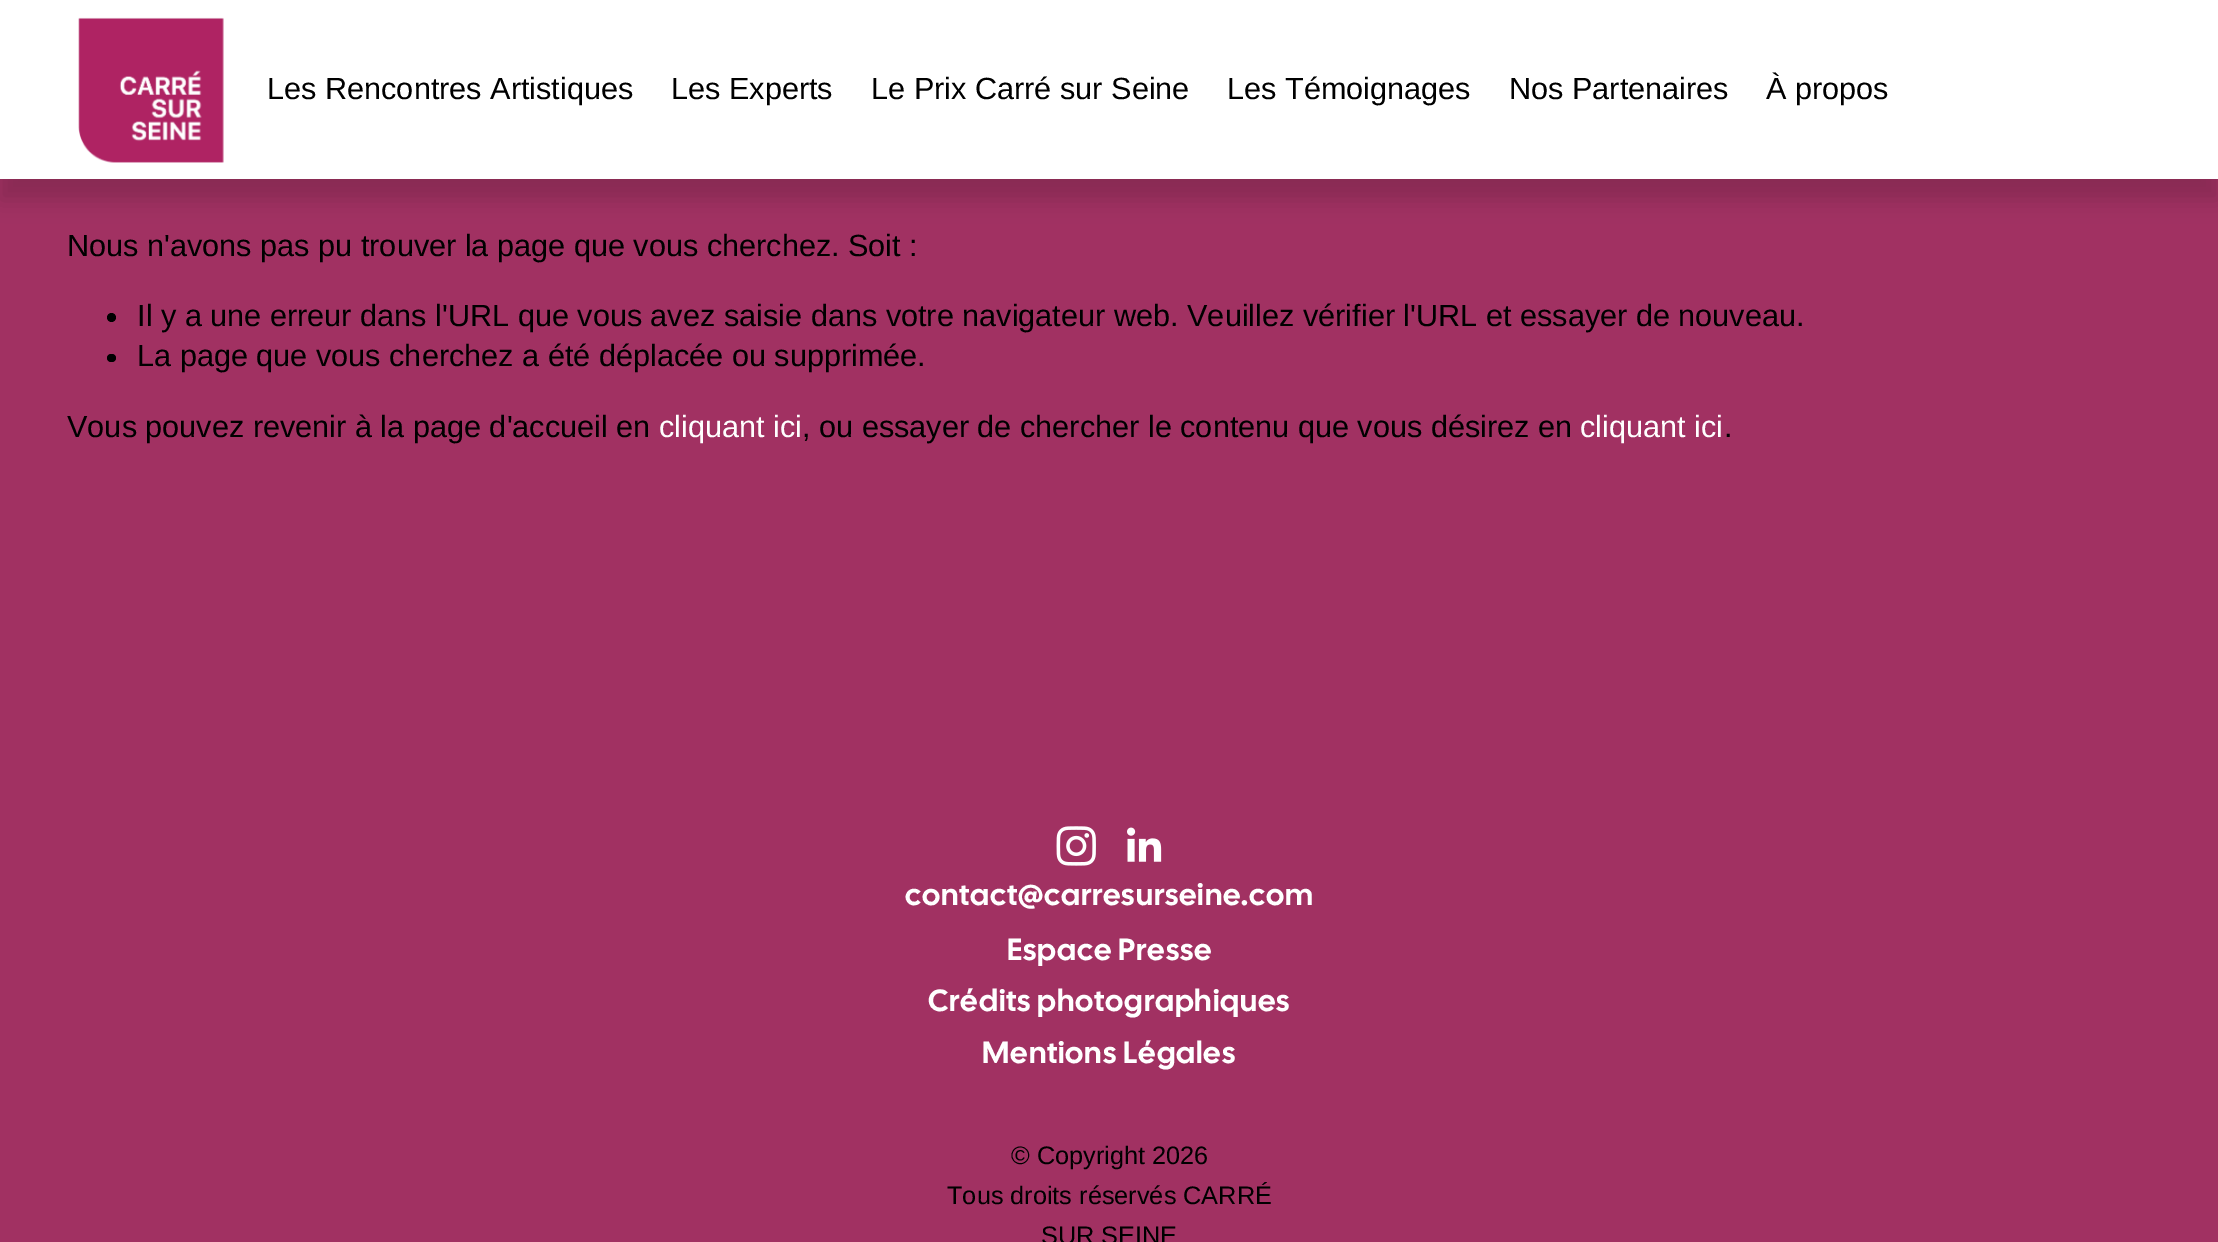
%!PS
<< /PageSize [2218 1242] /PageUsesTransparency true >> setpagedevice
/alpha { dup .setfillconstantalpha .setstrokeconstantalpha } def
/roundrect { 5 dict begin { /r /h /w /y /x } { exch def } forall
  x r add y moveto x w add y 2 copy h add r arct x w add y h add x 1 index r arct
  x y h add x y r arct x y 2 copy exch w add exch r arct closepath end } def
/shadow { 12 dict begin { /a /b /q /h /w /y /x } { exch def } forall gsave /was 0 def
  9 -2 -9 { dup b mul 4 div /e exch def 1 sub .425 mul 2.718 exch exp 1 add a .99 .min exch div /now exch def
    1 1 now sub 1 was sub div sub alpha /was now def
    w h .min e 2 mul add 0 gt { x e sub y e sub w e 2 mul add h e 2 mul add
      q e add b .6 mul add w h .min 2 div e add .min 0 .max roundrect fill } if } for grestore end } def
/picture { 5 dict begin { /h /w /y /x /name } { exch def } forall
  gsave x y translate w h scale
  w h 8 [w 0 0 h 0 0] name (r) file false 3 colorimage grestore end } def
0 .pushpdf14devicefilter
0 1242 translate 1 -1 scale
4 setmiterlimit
0.631 0.192 0.384 setrgbcolor
0 0 2218 1242 rectfill
0.537 0.165 0.325 setrgbcolor
0 21 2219 179 0 10.5 1 shadow
1 setgray
0 0 2218 179 rectfill
(img1.rgb) 78 17 146 146 picture
/LiberationSans-Regular [30.65 0 0 -30.65 0 0] selectfont
0 setgray
267 99 moveto (Les Rencontres Artistiques) show
671 99 moveto (Les Experts) show
871 99 moveto (Le Prix Carré sur Seine) show
1227 99 moveto (Les Témoignages) show
1509 99 moveto (Nos Partenaires) show
1766 99 moveto (À propos) show
67 256 moveto (Nous n'avons pas pu trouver la page que vous cherchez. Soit :) show
newpath 111.5 317.5 4.5 0 360 arc closepath fill
137 326 moveto (Il y a une erreur dans l'URL que vous avez saisie dans votre navigateur web. Veuillez vérifier l'URL et essayer de nouveau.) show
107 354 9 8 4 roundrect fill
137 366 moveto (La page que vous cherchez a été déplacée ou supprimée.) show
67 437 moveto (Vous pouvez revenir à la page d'accueil en) show
1 setgray
659 437 moveto (cliquant ici) show
0 setgray
802 437 moveto (, ou essayer de chercher le contenu que vous désirez en) show
1 setgray
1580 437 moveto (cliquant ici) show
0 setgray
1724 437 moveto (.) show
(img2.rgb) 1056 826 40 40 picture
(img3.rgb) 1127 827 35 35 picture
/CalSans-Regular [30.65 0 0 -30.65 0 0] selectfont
1 setgray
905 905 moveto 0.9 0 (contact@carresurseine.com) ashow
1007 960 moveto 0.9 0 (Espace Presse) ashow
928 1011 moveto 0.9 0 (Crédits photographiques) ashow
982 1063 moveto 0.9 0 (Mentions Légales) ashow
/LiberationSans-Regular [25.3 0 0 -25.3 0 0] selectfont
0 setgray
1011 1164 moveto (© Copyright 2026) show
947 1204 moveto (Tous droits réservés CARRÉ) show
1041 1244 moveto (SUR SEINE) show
.poppdf14devicefilter showpage
